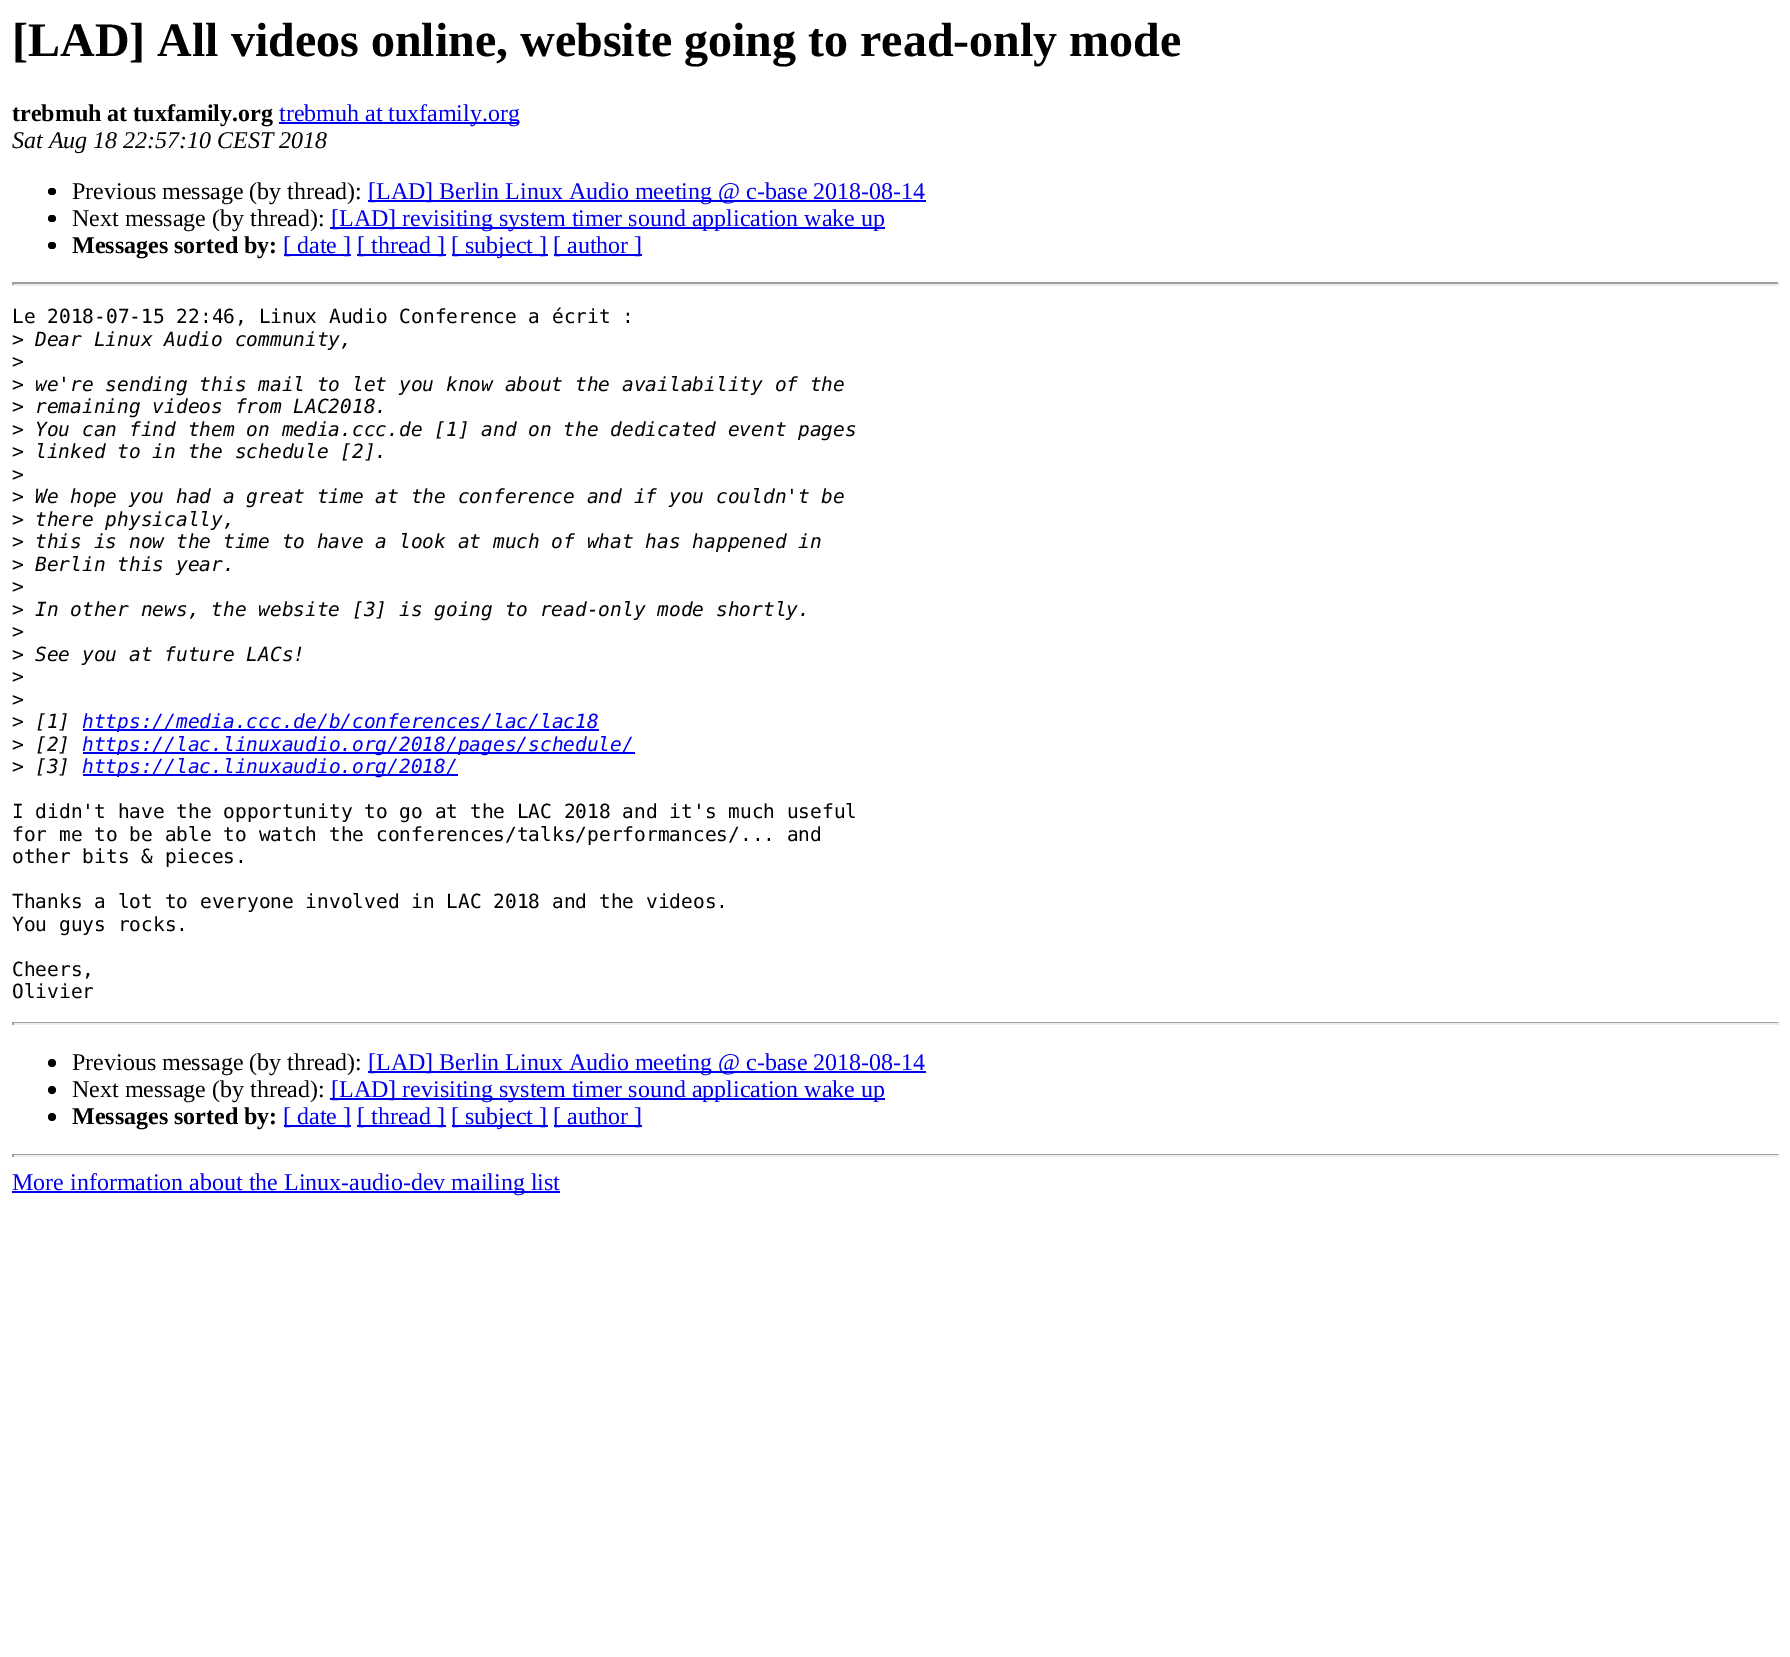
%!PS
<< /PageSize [1790 1657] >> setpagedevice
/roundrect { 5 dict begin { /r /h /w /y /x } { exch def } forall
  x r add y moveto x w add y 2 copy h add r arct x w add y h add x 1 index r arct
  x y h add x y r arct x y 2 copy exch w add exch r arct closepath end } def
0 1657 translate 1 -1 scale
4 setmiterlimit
1 setgray
0 0 1790 1657 rectfill
/LiberationSerif-Bold [48 0 0 -48 0 0] selectfont
0 setgray
12 56 moveto ([LAD] All videos online, website going to read-only mode) show
/LiberationSerif-Bold [24 0 0 -24 0 0] selectfont
12 121 moveto (trebmuh at tuxfamily.org) show
0 0 0.933 setrgbcolor
279 122 240 2 rectfill
/LiberationSerif-Regular [24 0 0 -24 0 0] selectfont
279 121 moveto (trebmuh at tuxfamily.org) show
/LiberationSerif-Italic [24 0 0 -24 0 0] selectfont
0 setgray
12 148 moveto (Sat Aug 18 22:57:10 CEST 2018) show
48 188 8 7 3.5 roundrect fill
/LiberationSerif-Regular [24 0 0 -24 0 0] selectfont
72 199 moveto (Previous message \(by thread\):) show
0 0 0.933 setrgbcolor
368 200 558 2 rectfill
368 199 moveto ([LAD] Berlin Linux Audio meeting @ c-base 2018-08-14) show
0 setgray
48 215 8 7 3.5 roundrect fill
72 226 moveto (Next message \(by thread\):) show
0 0 0.933 setrgbcolor
330 227 555 2 rectfill
331 226 moveto ([LAD] revisiting system timer sound application wake up) show
0 setgray
48 242 8 7 3.5 roundrect fill
/LiberationSerif-Bold [24 0 0 -24 0 0] selectfont
72 253 moveto (Messages sorted by:) show
0 0 0.933 setrgbcolor
284 254 67 2 rectfill
/LiberationSerif-Regular [24 0 0 -24 0 0] selectfont
283 253 moveto ([ date ]) show
357 254 89 2 rectfill
357 253 moveto ([ thread ]) show
452 254 96 2 rectfill
451 253 moveto ([ subject ]) show
554 254 88 2 rectfill
553 253 moveto ([ author ]) show
0.624 setgray
12 282 1767 2 rectfill
0.933 setgray
1778 282 2 3 rectfill
12 284 1767 2 rectfill
0.624 setgray
12 282 2 3 rectfill
/DejaVuSansMono-Regular [19.5 0 0 -19.5 0 0] selectfont
0 setgray
12 323 moveto (Le 2018-07-15 22:46, Linux Audio Conference a écrit :) show
12 346 moveto (>) show
/DejaVuSansMono-Italic [19.5 0 0 -19.5 0 0] selectfont
35 346 moveto (Dear Linux Audio community,) show
/DejaVuSansMono-Regular [19.5 0 0 -19.5 0 0] selectfont
12 368 moveto (>) show
12 391 moveto (>) show
/DejaVuSansMono-Italic [19.5 0 0 -19.5 0 0] selectfont
35 391 moveto (we're sending this mail to let you know about the availability of the) show
/DejaVuSansMono-Regular [19.5 0 0 -19.5 0 0] selectfont
12 413 moveto (>) show
/DejaVuSansMono-Italic [19.5 0 0 -19.5 0 0] selectfont
35 413 moveto (remaining videos from LAC2018.) show
/DejaVuSansMono-Regular [19.5 0 0 -19.5 0 0] selectfont
12 436 moveto (>) show
/DejaVuSansMono-Italic [19.5 0 0 -19.5 0 0] selectfont
35 436 moveto (You can find them on media.ccc.de [1] and on the dedicated event pages) show
/DejaVuSansMono-Regular [19.5 0 0 -19.5 0 0] selectfont
12 458 moveto (>) show
/DejaVuSansMono-Italic [19.5 0 0 -19.5 0 0] selectfont
35 458 moveto (linked to in the schedule [2].) show
/DejaVuSansMono-Regular [19.5 0 0 -19.5 0 0] selectfont
12 481 moveto (>) show
12 503 moveto (>) show
/DejaVuSansMono-Italic [19.5 0 0 -19.5 0 0] selectfont
35 503 moveto (We hope you had a great time at the conference and if you couldn't be) show
/DejaVuSansMono-Regular [19.5 0 0 -19.5 0 0] selectfont
12 526 moveto (>) show
/DejaVuSansMono-Italic [19.5 0 0 -19.5 0 0] selectfont
35 526 moveto (there physically,) show
/DejaVuSansMono-Regular [19.5 0 0 -19.5 0 0] selectfont
12 548 moveto (>) show
/DejaVuSansMono-Italic [19.5 0 0 -19.5 0 0] selectfont
35 548 moveto (this is now the time to have a look at much of what has happened in) show
/DejaVuSansMono-Regular [19.5 0 0 -19.5 0 0] selectfont
12 571 moveto (>) show
/DejaVuSansMono-Italic [19.5 0 0 -19.5 0 0] selectfont
35 571 moveto (Berlin this year.) show
/DejaVuSansMono-Regular [19.5 0 0 -19.5 0 0] selectfont
12 593 moveto (>) show
12 616 moveto (>) show
/DejaVuSansMono-Italic [19.5 0 0 -19.5 0 0] selectfont
35 616 moveto (In other news, the website [3] is going to read-only mode shortly.) show
/DejaVuSansMono-Regular [19.5 0 0 -19.5 0 0] selectfont
12 638 moveto (>) show
12 661 moveto (>) show
/DejaVuSansMono-Italic [19.5 0 0 -19.5 0 0] selectfont
35 661 moveto (See you at future LACs!) show
/DejaVuSansMono-Regular [19.5 0 0 -19.5 0 0] selectfont
12 683 moveto (>) show
12 706 moveto (>) show
12 728 moveto (>) show
/DejaVuSansMono-Italic [19.5 0 0 -19.5 0 0] selectfont
35 728 moveto ([1]) show
0 0 0.933 setrgbcolor
83 729 516 2 rectfill
82 728 moveto (https://media.ccc.de/b/conferences/lac/lac18) show
/DejaVuSansMono-Regular [19.5 0 0 -19.5 0 0] selectfont
0 setgray
12 751 moveto (>) show
/DejaVuSansMono-Italic [19.5 0 0 -19.5 0 0] selectfont
35 751 moveto ([2]) show
0 0 0.933 setrgbcolor
83 752 552 2 rectfill
82 751 moveto (https://lac.linuxaudio.org/2018/pages/schedule/) show
/DejaVuSansMono-Regular [19.5 0 0 -19.5 0 0] selectfont
0 setgray
12 773 moveto (>) show
/DejaVuSansMono-Italic [19.5 0 0 -19.5 0 0] selectfont
35 773 moveto ([3]) show
0 0 0.933 setrgbcolor
83 774 375 2 rectfill
82 773 moveto (https://lac.linuxaudio.org/2018/) show
/DejaVuSansMono-Regular [19.5 0 0 -19.5 0 0] selectfont
0 setgray
12 818 moveto (I didn't have the opportunity to go at the LAC 2018 and it's much useful) show
12 841 moveto (for me to be able to watch the conferences/talks/performances/... and) show
12 863 moveto (other bits & pieces.) show
12 908 moveto (Thanks a lot to everyone involved in LAC 2018 and the videos.) show
12 931 moveto (You guys rocks.) show
12 976 moveto (Cheers,) show
12 998 moveto (Olivier) show
0.624 setgray
12 1022 1767 1 rectfill
0.933 setgray
1778 1022 2 3 rectfill
12 1023 1767 2 rectfill
0.624 setgray
12 1022 2 3 rectfill
0 setgray
newpath 52 1063 4 0 360 arc closepath fill
/LiberationSerif-Regular [24 0 0 -24 0 0] selectfont
72 1070 moveto (Previous message \(by thread\):) show
0 0 0.933 setrgbcolor
368 1071 558 2 rectfill
368 1070 moveto ([LAD] Berlin Linux Audio meeting @ c-base 2018-08-14) show
0 setgray
newpath 52 1090 4 0 360 arc closepath fill
72 1097 moveto (Next message \(by thread\):) show
0 0 0.933 setrgbcolor
330 1098 555 2 rectfill
331 1097 moveto ([LAD] revisiting system timer sound application wake up) show
0 setgray
newpath 52 1117 4 0 360 arc closepath fill
/LiberationSerif-Bold [24 0 0 -24 0 0] selectfont
72 1124 moveto (Messages sorted by:) show
0 0 0.933 setrgbcolor
284 1125 67 2 rectfill
/LiberationSerif-Regular [24 0 0 -24 0 0] selectfont
283 1124 moveto ([ date ]) show
357 1125 89 2 rectfill
357 1124 moveto ([ thread ]) show
452 1125 96 2 rectfill
451 1124 moveto ([ subject ]) show
554 1125 88 2 rectfill
553 1124 moveto ([ author ]) show
0.624 setgray
12 1154 1767 1 rectfill
0.933 setgray
1778 1154 2 3 rectfill
12 1155 1767 2 rectfill
0.624 setgray
12 1154 2 3 rectfill
0 0 0.933 setrgbcolor
12 1191 548 2 rectfill
12 1190 moveto (More information about the Linux-audio-dev mailing list) show
showpage
